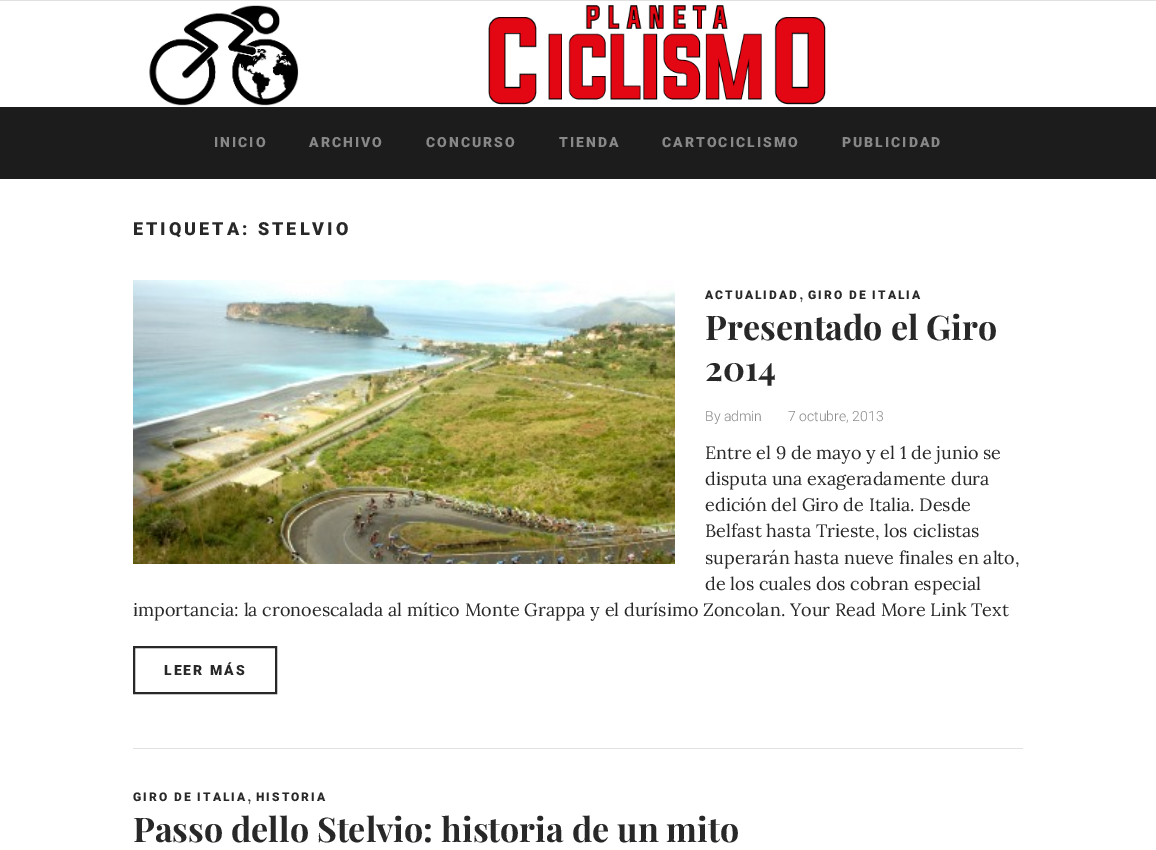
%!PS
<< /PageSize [1156 850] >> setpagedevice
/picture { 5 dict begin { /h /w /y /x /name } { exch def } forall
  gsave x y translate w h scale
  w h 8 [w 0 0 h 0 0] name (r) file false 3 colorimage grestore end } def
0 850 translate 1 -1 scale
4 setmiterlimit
1 setgray
0 0 1156 850 rectfill
0.882 setgray
0 0 1156 1 rectfill
(img1.rgb) 149 5 150 101 picture
(img2.rgb) 488 5 338 100 picture
0.11 setgray
0 107 1156 72 rectfill
/Roboto-Black [14 0 0 -14 0 0] selectfont
0.533 setgray
214 147 moveto 2 0 (INICIO) ashow
309 147 moveto 2 0 (ARCHIVO) ashow
426 147 moveto 2 0 (CONCURSO) ashow
559 147 moveto 2 0 (TIENDA) ashow
662 147 moveto 2 0 (CARTOCICLISMO) ashow
842 147 moveto 2 0 (PUBLICIDAD) ashow
/Roboto-Black [18 0 0 -18 0 0] selectfont
0.157 setgray
133 235 moveto 3 0 (ETIQUETA: STELVIO) ashow
0.882 setgray
133 748 890 1 rectfill
(img3.rgb) 133 280 542 284 picture
/Roboto-Black [12 0 0 -12 0 0] selectfont
0.157 setgray
705 299 moveto 2 0 (ACTUALIDAD) ashow
/Lora-Regular [18 0 0 -18 0 0] selectfont
799 299 moveto (,) show
/Roboto-Black [12 0 0 -12 0 0] selectfont
808 299 moveto 2 0 (GIRO DE ITALIA) ashow
/PlayfairDisplay-Bold [34 0 0 -34 0 0] selectfont
705 340 moveto (Presentado el Giro) show
705 381 moveto (2014) show
/Roboto-Light [14 0 0 -14 0 0] selectfont
0.533 setgray
705 421 moveto (By admin) show
788 421 moveto (7 octubre, 2013) show
/Lora-Regular [18 0 0 -18 0 0] selectfont
0.157 setgray
705 459 moveto (Entre el 9 de mayo y el 1 de junio se) show
705 485 moveto (disputa una exageradamente dura) show
705 511 moveto (edición del Giro de Italia. Desde) show
705 537 moveto (Belfast hasta Trieste, los ciclistas) show
705 564 moveto (superarán hasta nueve finales en alto,) show
705 590 moveto (de los cuales dos cobran especial) show
133 616 moveto (importancia: la cronoescalada al mítico Monte Grappa y el durísimo Zoncolan. Your Read More Link Text) show
2 setlinewidth
134 647 142 46 rectstroke
/Roboto-Black [14 0 0 -14 0 0] selectfont
164 675 moveto 2 0 (LEER MÁS) ashow
/Roboto-Black [12 0 0 -12 0 0] selectfont
133 801 moveto 2 0 (GIRO DE ITALIA) ashow
/Lora-Regular [18 0 0 -18 0 0] selectfont
247 801 moveto (,) show
/Roboto-Black [12 0 0 -12 0 0] selectfont
256 801 moveto 2 0 (HISTORIA) ashow
/PlayfairDisplay-Bold [34 0 0 -34 0 0] selectfont
133 842 moveto (Passo dello Stelvio: historia de un mito) show
showpage
